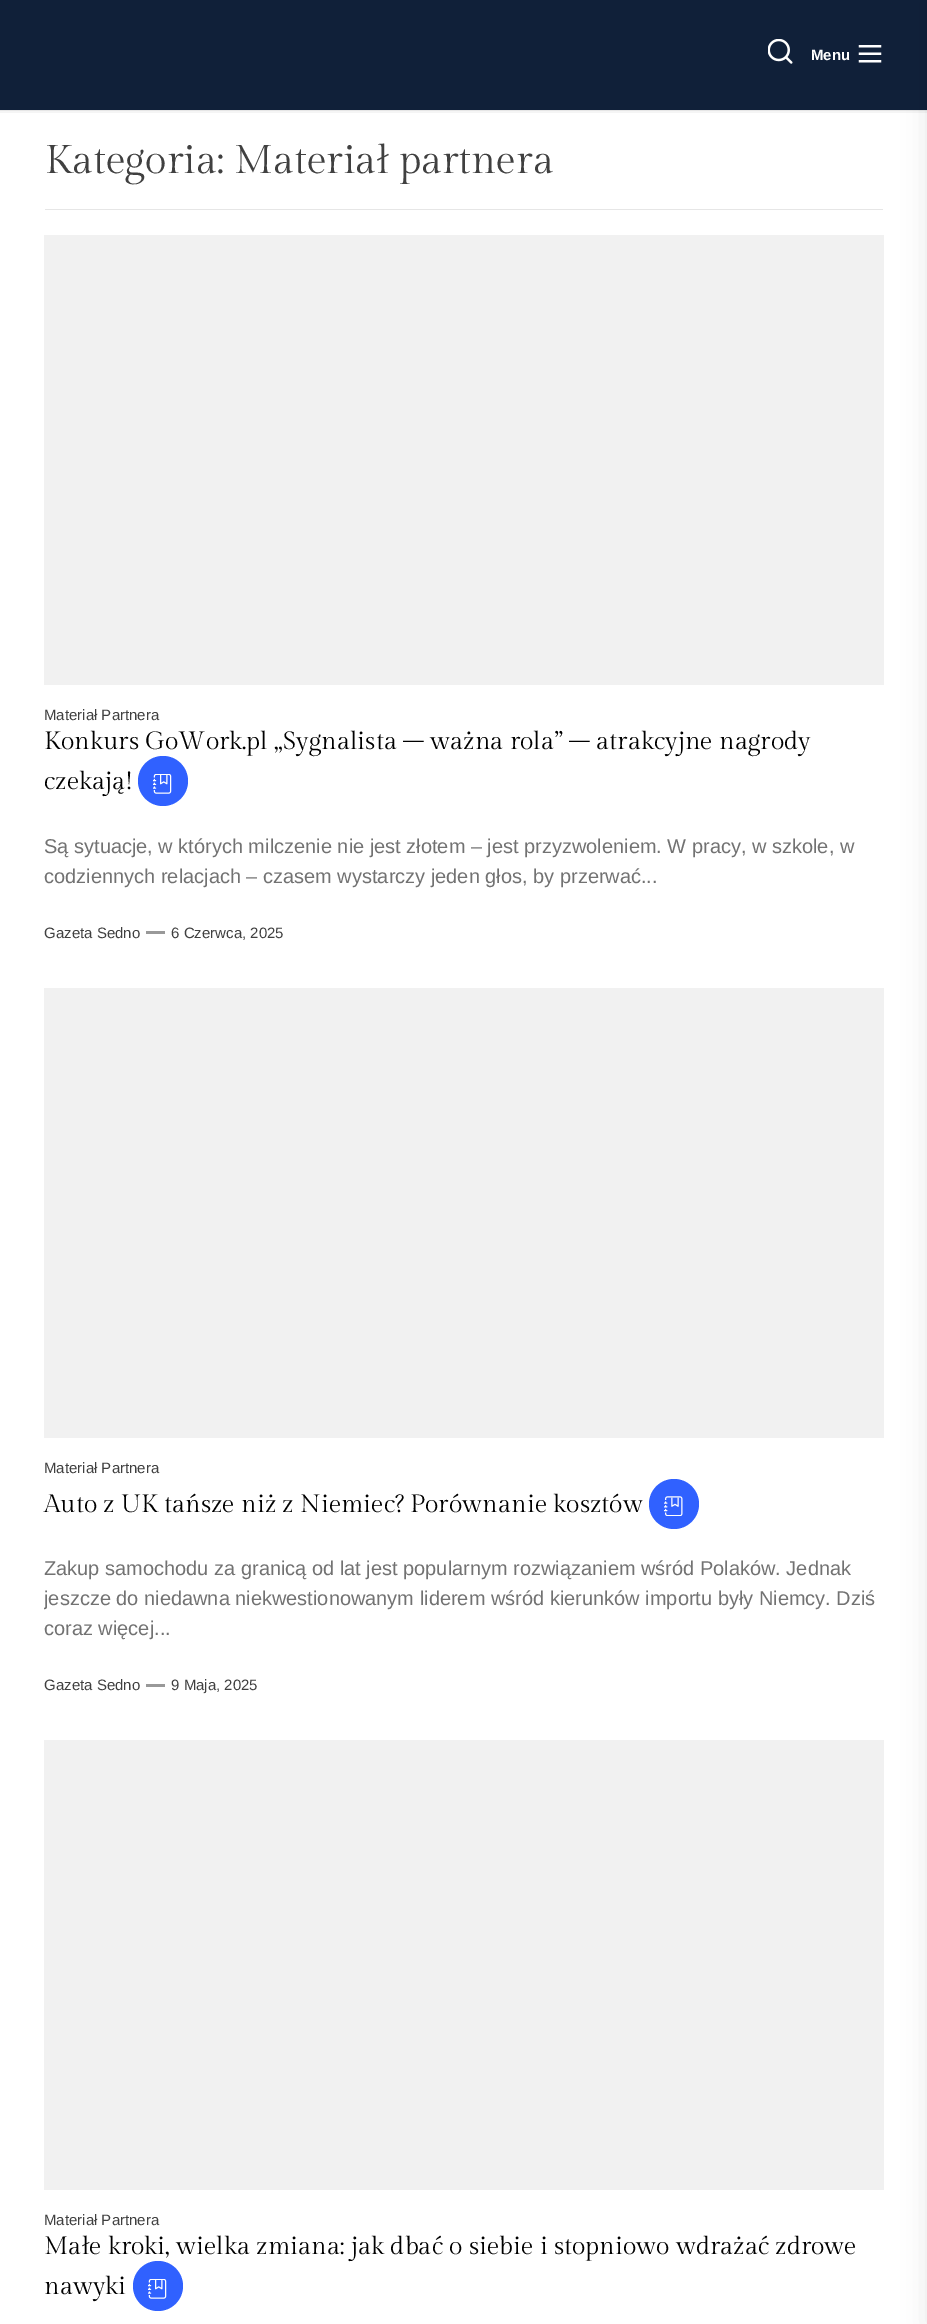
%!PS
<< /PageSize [927 2324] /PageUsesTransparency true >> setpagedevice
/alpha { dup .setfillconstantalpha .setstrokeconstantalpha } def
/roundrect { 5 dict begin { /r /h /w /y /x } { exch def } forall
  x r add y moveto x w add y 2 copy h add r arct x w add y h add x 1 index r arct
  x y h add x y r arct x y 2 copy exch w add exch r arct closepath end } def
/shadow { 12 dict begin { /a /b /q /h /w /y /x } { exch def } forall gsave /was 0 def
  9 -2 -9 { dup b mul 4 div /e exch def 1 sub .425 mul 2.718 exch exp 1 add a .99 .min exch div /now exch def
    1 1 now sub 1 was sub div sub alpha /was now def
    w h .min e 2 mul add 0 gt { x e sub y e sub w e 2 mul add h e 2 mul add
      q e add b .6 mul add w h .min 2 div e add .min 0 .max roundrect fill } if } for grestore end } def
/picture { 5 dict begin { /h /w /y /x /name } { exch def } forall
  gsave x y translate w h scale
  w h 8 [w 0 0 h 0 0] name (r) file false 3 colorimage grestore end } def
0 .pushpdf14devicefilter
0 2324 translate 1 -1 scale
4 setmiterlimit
1 setgray
0 0 927 2324 rectfill
0.961 setgray
newpath 0 111 moveto 0 113 lineto 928 113 lineto 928 1 lineto 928 111 lineto closepath fill
0.063 0.125 0.224 setrgbcolor
0 0 927 110 rectfill
0.902 setgray
0 110 927 1 rectfill
(img1.rgb) 768 39 25 25 picture
/LiberationSans-Bold [15 0 0 -15 0 0] selectfont
1 setgray
811 60 moveto (Menu) show
(img2.rgb) 858 45 24 18 picture
0 setgray
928 0 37 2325 0 12.5 0.1 shadow
/GildaDisplay-Regular [40 0 0 -40 0 0] selectfont
0.251 setgray
45 173 moveto (Kategoria: Materiał partnera) show
0.902 setgray
45 209 838 1 rectfill
0.945 setgray
44 235 840 450 rectfill
/LiberationSans-Regular [15 0 0 -15 0 0] selectfont
0.251 setgray
44 720 moveto (Materiał Partnera) show
/GildaDisplay-Regular [25 0 0 -25 0 0] selectfont
0 setgray
44 749 moveto (Konkurs GoWork.pl „Sygnalista – ważna rola” – atrakcyjne nagrody) show
44 789 moveto (czekają!) show
0.188 0.38 1 setrgbcolor
newpath 163 781 25 0 360 arc closepath fill
(img3.rgb) 153 774 19 20 picture
/LiberationSans-Regular [20 0 0 -20 0 0] selectfont
0.447 setgray
44 853 moveto (Są sytuacje, w których milczenie nie jest złotem – jest przyzwoleniem. W pracy, w szkole, w) show
44 883 moveto (codziennych relacjach – czasem wystarczy jeden głos, by przerwać...) show
/LiberationSans-Regular [15 0 0 -15 0 0] selectfont
0.251 setgray
44 938 moveto (Gazeta Sedno) show
0.6 setgray
146 931 19 3 rectfill
0.251 setgray
171 938 moveto (6 Czerwca, 2025) show
0.945 setgray
44 988 840 450 rectfill
0.251 setgray
44 1473 moveto (Materiał Partnera) show
/GildaDisplay-Regular [25 0 0 -25 0 0] selectfont
0 setgray
44 1512 moveto (Auto z UK tańsze niż z Niemiec? Porównanie kosztów) show
0.188 0.38 1 setrgbcolor
newpath 674 1504 25 0 360 arc closepath fill
(img4.rgb) 664 1496 19 20 picture
/LiberationSans-Regular [20 0 0 -20 0 0] selectfont
0.447 setgray
44 1575 moveto (Zakup samochodu za granicą od lat jest popularnym rozwiązaniem wśród Polaków. Jednak) show
gsave
44 1548 840 126 rectclip
44 1605 moveto (jeszcze do niedawna niekwestionowanym liderem wśród kierunków importu były Niemcy. Dziś) show
grestore
44 1635 moveto (coraz więcej...) show
/LiberationSans-Regular [15 0 0 -15 0 0] selectfont
0.251 setgray
44 1690 moveto (Gazeta Sedno) show
0.6 setgray
146 1684 19 3 rectfill
0.251 setgray
171 1690 moveto (9 Maja, 2025) show
0.945 setgray
44 1740 840 450 rectfill
0.251 setgray
44 2225 moveto (Materiał Partnera) show
/GildaDisplay-Regular [25 0 0 -25 0 0] selectfont
0 setgray
44 2254 moveto (Małe kroki, wielka zmiana: jak dbać o siebie i stopniowo wdrażać zdrowe) show
44 2294 moveto (nawyki) show
0.188 0.38 1 setrgbcolor
newpath 158 2286 25 0 360 arc closepath fill
(img3.rgb) 148 2279 19 20 picture
.poppdf14devicefilter showpage
